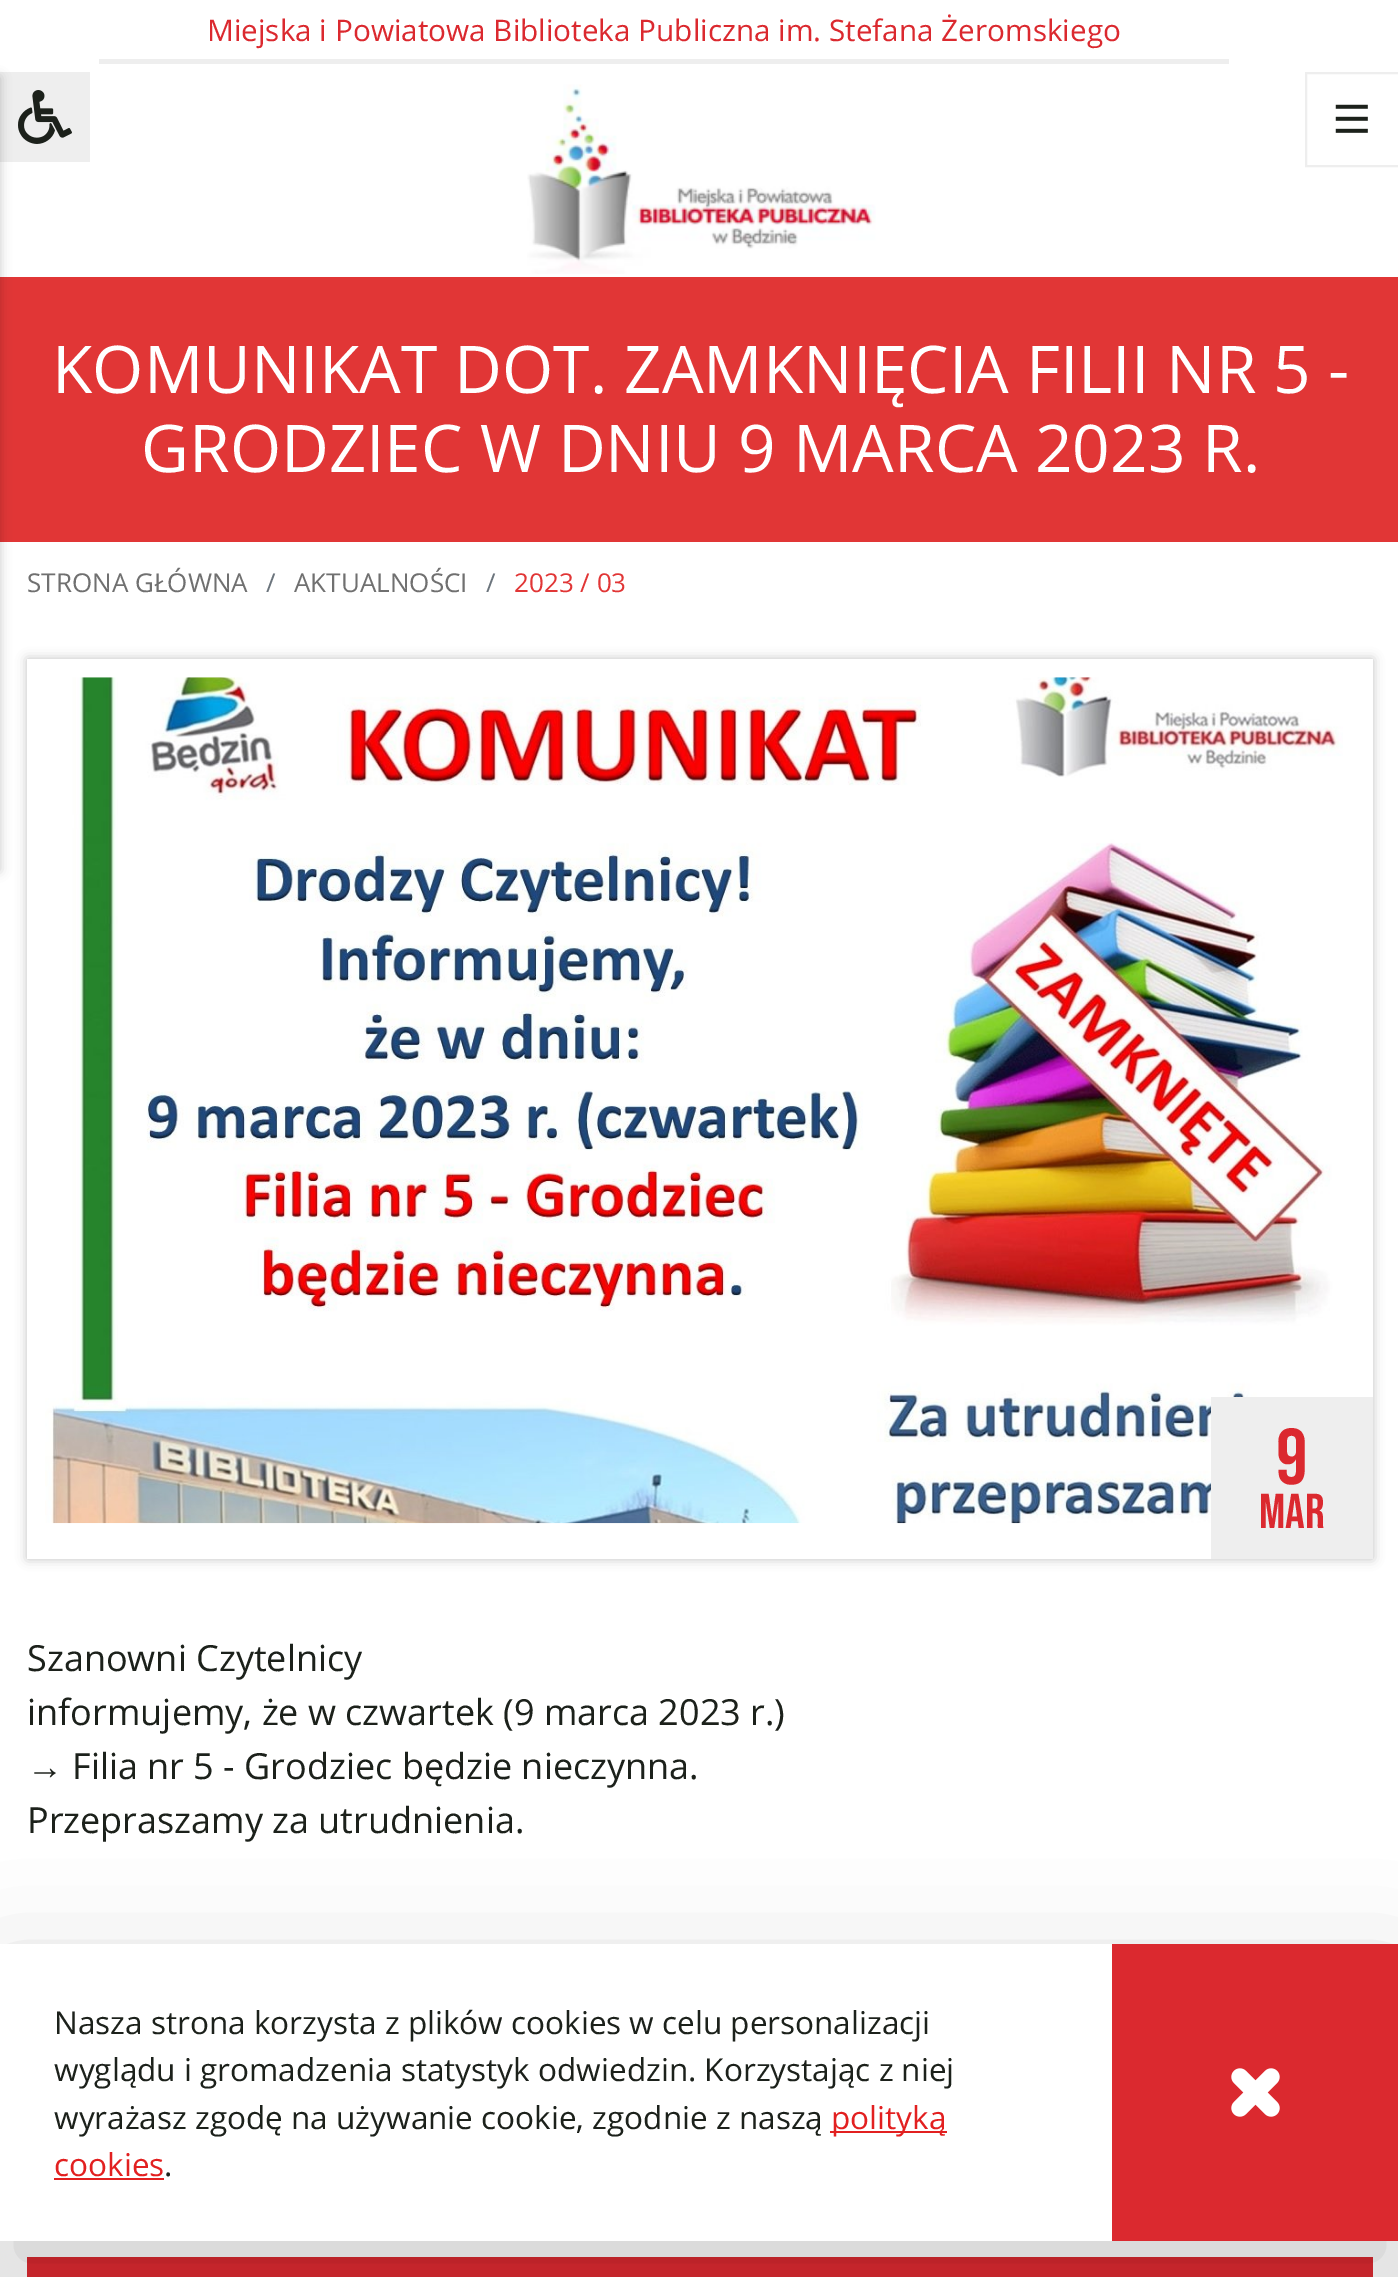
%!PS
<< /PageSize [1398 2277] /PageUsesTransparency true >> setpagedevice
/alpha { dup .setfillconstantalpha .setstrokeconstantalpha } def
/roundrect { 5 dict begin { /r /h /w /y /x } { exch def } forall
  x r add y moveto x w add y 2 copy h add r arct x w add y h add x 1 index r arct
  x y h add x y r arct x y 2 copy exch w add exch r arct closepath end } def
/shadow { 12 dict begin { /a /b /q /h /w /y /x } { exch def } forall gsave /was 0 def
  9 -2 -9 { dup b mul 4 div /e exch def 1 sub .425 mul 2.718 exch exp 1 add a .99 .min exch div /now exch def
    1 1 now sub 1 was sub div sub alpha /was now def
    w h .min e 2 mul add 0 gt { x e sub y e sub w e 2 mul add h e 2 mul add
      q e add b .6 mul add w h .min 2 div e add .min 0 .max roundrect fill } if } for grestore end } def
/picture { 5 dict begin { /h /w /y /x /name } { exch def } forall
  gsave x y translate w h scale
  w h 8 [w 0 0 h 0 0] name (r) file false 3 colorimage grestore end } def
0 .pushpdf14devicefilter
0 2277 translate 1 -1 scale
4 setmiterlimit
1 setgray
0 0 1398 2277 rectfill
/OpenSans-Regular [29.7 0 0 -29.7 0 0] selectfont
0.859 0.161 0.184 setrgbcolor
207 41 moveto (Miejska i Powiatowa Biblioteka Publiczna im. Stefana Żeromskiego) show
0.933 setgray
99 59 1130 5 rectfill
0 72 90 90 rectfill
0.882 0.212 0.212 setrgbcolor
0 277 1398 265 rectfill
0 setgray
-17 77 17 794 0 5.5 0.2 shadow
(img1.rgb) 18 90 54 54 picture
(img2.rgb) 527 84 349 190 picture
0.933 setgray
2 setlinewidth
1306 73 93 93 rectstroke
(img3.rgb) 1335 104 33 29 picture
/OpenSans-Regular [65.75 0 0 -65.75 0 0] selectfont
1 setgray
52 393 moveto (KOMUNIKAT DOT. ZAMKNIĘCIA FILII NR 5 -) show
141 472 moveto (GRODZIEC W DNIU 9 MARCA 2023 R.) show
/OpenSans-Regular [26 0 0 -26 0 0] selectfont
0.439 setgray
27 592 moveto (STRONA GŁÓWNA) show
0.424 0.459 0.49 setrgbcolor
266 592 moveto (/) show
0.439 setgray
294 592 moveto (AKTUALNOŚCI) show
0.424 0.459 0.49 setrgbcolor
486 592 moveto (/) show
0.882 0.212 0.212 setrgbcolor
514 592 moveto (2023 / 03) show
gsave
newpath 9 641 moveto 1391 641 lineto 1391 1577 lineto 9 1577 lineto closepath 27 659 moveto 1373 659 lineto 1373 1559 lineto 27 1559 lineto closepath eoclip newpath
0.196 setgray
27 659 1346 900 0 5.5 0.3 shadow
grestore
(img4.rgb) 45 677 1298 847 picture
0.933 setgray
1211 1397 162 162 rectfill
/BebasNeue-Regular [79 0 0 -79 0 0] selectfont
0.859 0.161 0.184 setrgbcolor
1276 1484 moveto (9) show
/BebasNeue-Regular [49 0 0 -49 0 0] selectfont
1259 1528 moveto (MAR) show
/OpenSans-Regular [36 0 0 -36 0 0] selectfont
0.11 0.129 0.106 setrgbcolor
27 1671 moveto (Szanowni Czytelnicy) show
27 1725 moveto (informujemy, że w czwartek \(9 marca 2023 r.\)) show
/LiberationSans-Regular [36 0 0 -36 0 0] selectfont
27 1779 moveto (→) show
/OpenSans-Regular [36 0 0 -36 0 0] selectfont
72 1779 moveto (Filia nr 5 - Grodziec będzie nieczynna.) show
27 1833 moveto (Przepraszamy za utrudnienia.) show
0.859 0.161 0.184 setrgbcolor
27 2257 1346 20 rectfill
0 setgray
0 1980 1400 297 0 54 0.2 shadow
1 setgray
0 1944 1112 297 rectfill
/OpenSans-Regular [31.5 0 0 -31.5 0 0] selectfont
0.11 0.129 0.106 setrgbcolor
54 2034 moveto (Nasza strona korzysta z plików cookies w celu personalizacji) show
54 2081 moveto (wyglądu i gromadzenia statystyk odwiedzin. Korzystając z niej) show
54 2129 moveto (wyrażasz zgodę na używanie cookie, zgodnie z naszą) show
0.886 0.125 0.125 setrgbcolor
830 2131 117 2 rectfill
831 2129 moveto (polityką) show
54 2176 moveto (cookies) show
54 2178 110 2 rectfill
0.11 0.129 0.106 setrgbcolor
164 2176 moveto (.) show
0.859 0.161 0.184 setrgbcolor
1112 1944 286 297 rectfill
(img5.rgb) 1231 2068 49 49 picture
.poppdf14devicefilter showpage
